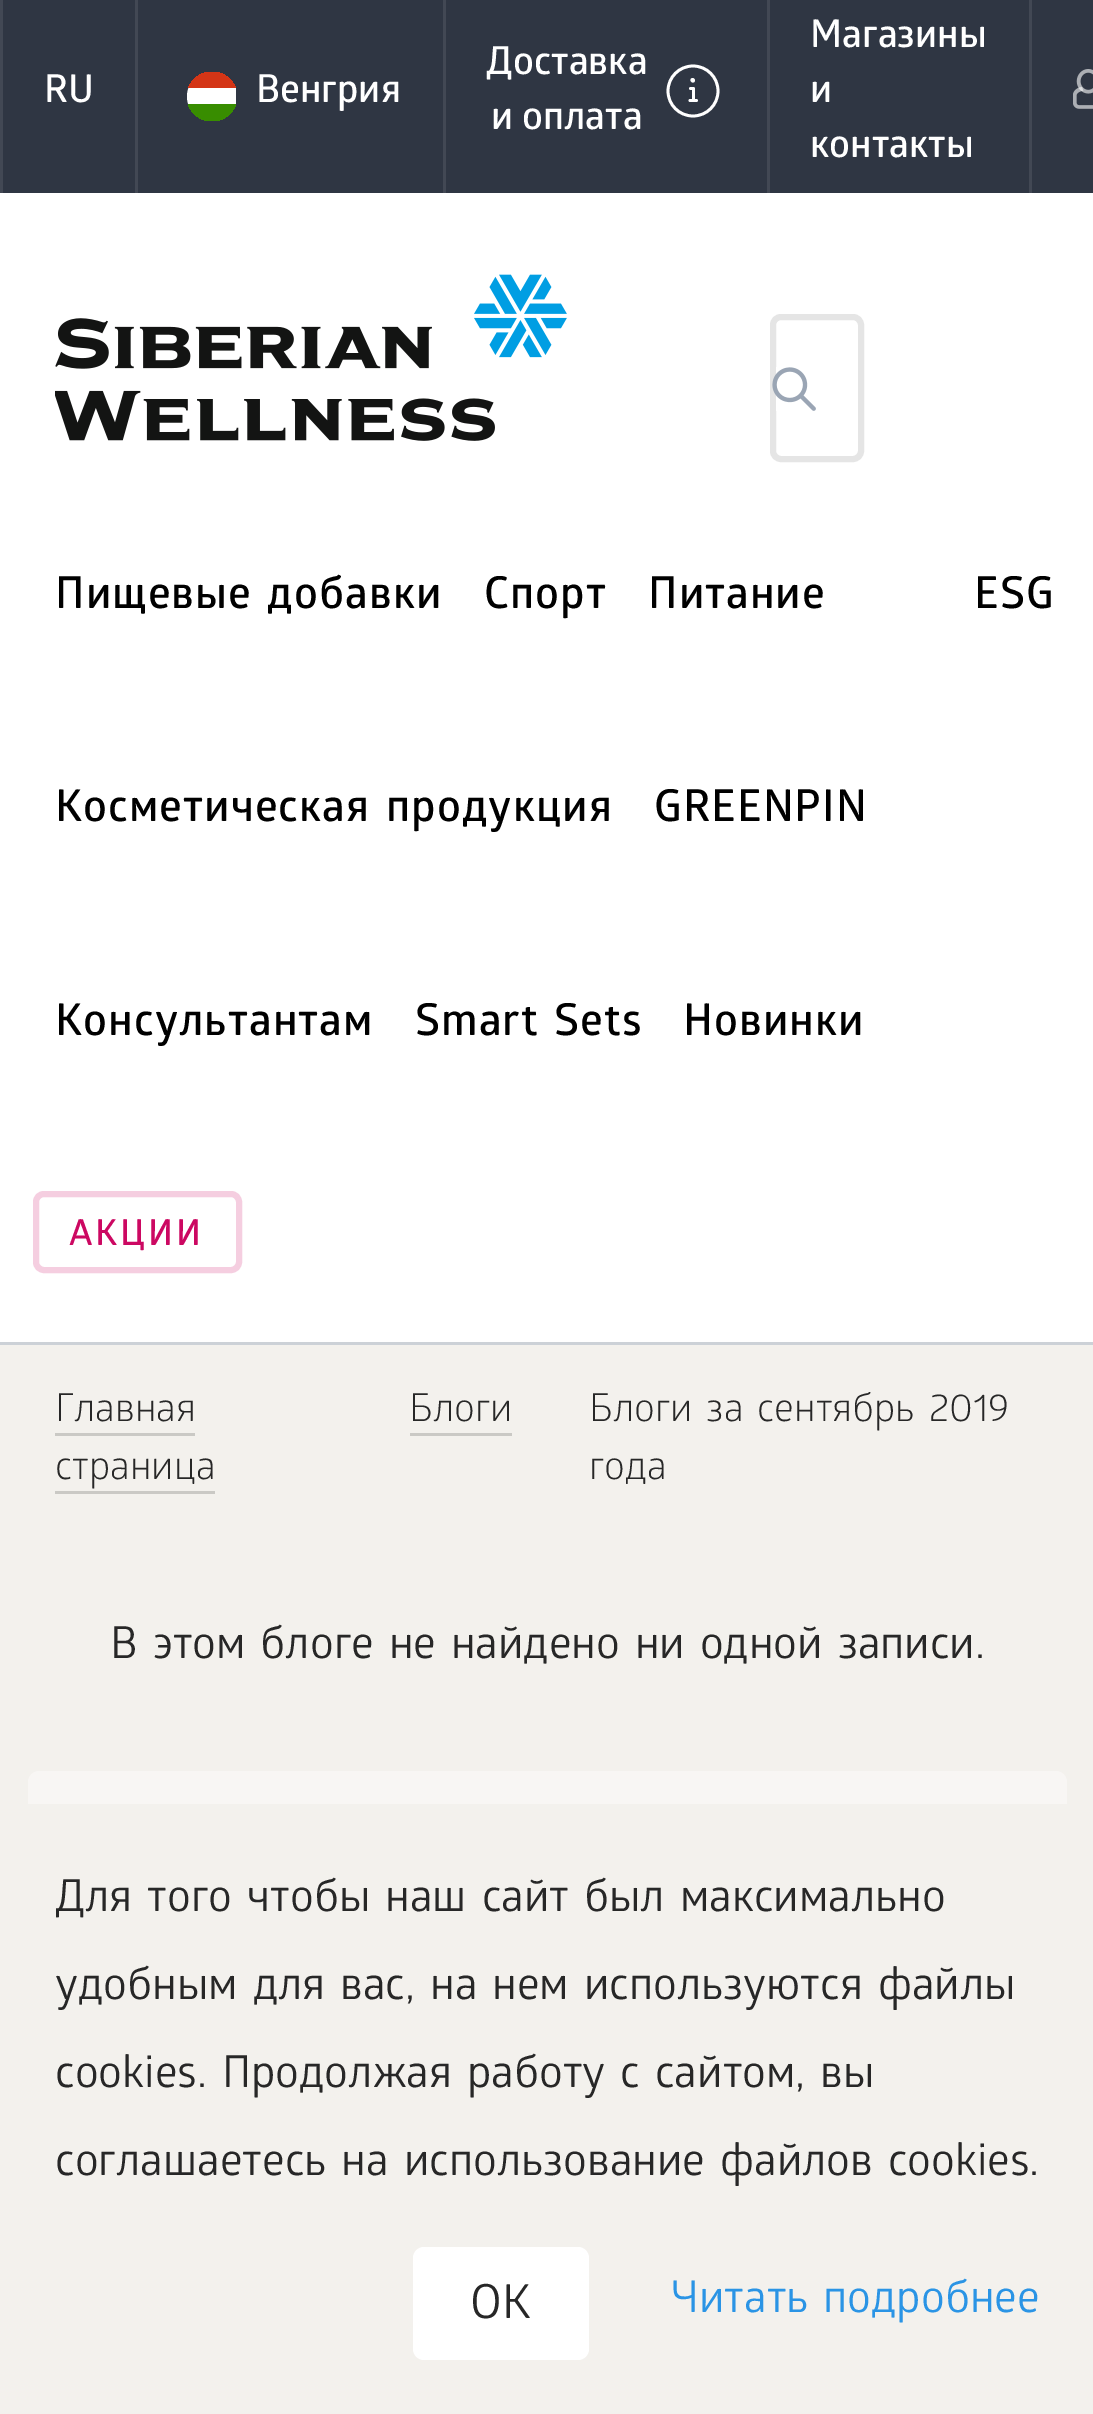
%!PS
<< /PageSize [1093 2414] >> setpagedevice
/roundrect { 5 dict begin { /r /h /w /y /x } { exch def } forall
  x r add y moveto x w add y 2 copy h add r arct x w add y h add x 1 index r arct
  x y h add x y r arct x y 2 copy exch w add exch r arct closepath end } def
/picture { 5 dict begin { /h /w /y /x /name } { exch def } forall
  gsave x y translate w h scale
  w h 8 [w 0 0 h 0 0] name (r) file false 3 colorimage grestore end } def
0 2414 translate 1 -1 scale
4 setmiterlimit
1 setgray
0 0 1093 2414 rectfill
0.184 0.212 0.263 setrgbcolor
3 0 1090 193 rectfill
0.259 0.282 0.329 setrgbcolor
0 0 3 193 rectfill
/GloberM-SemiBold [38.5 0 0 -38.5 0 0] selectfont
1 setgray
44 102 moveto (RU) show
0.259 0.282 0.329 setrgbcolor
135 0 3 193 rectfill
gsave
187 72 50 49 24.5 roundrect clip newpath
1 setgray
newpath 211.5 72 moveto 236 72 lineto 236 121 lineto 211.5 121 lineto 198 121 187 110 187 96.5 curveto 187 83 198 72 211.5 72 curveto closepath fill
0.22 0.553 0 setrgbcolor
188 104 48 17 rectfill
0.831 0.208 0.086 setrgbcolor
188 72 48 16 rectfill
grestore
1 setgray
256 102 moveto (Венгрия) show
0.259 0.282 0.329 setrgbcolor
443 0 3 193 rectfill
1 setgray
486 74 moveto (Доставка) show
2.8 setlinewidth
newpath 693 91 25 0 360 arc closepath stroke
1 setlinecap
1 setlinejoin
newpath 690 100.5 moveto 696.5 100.5 lineto 693.5 100.5 moveto 693.5 88.5 lineto 690.5 88.5 lineto 693.5 80.5 moveto 693.5 82.5 690.5 79.5 692.5 79.5 curveto 692.5 79.5 moveto 693 79.5 693.5 80 693.5 80.5 curveto stroke
491 129 moveto (и оплата) show
0.259 0.282 0.329 setrgbcolor
767 0 3 193 rectfill
1 setgray
810 47 moveto (Магазины) show
810 102 moveto (и) show
810 157 moveto (контакты) show
0.259 0.282 0.329 setrgbcolor
1029 0 3 193 rectfill
(img1.rgb) 1073 69 20 40 picture
0.8 0.82 0.843 setrgbcolor
0 1342 1093 3 rectfill
(img2.rgb) 55 274 512 167 picture
0.898 setgray
6 setlinewidth
0 setlinecap
0 setlinejoin
773 317 88 142 8 roundrect stroke
(img3.rgb) 772 367 44 44 picture
/GloberM-SemiBold [44 0 0 -44 0 0] selectfont
0 setgray
55 608 moveto 4.5 0 32 1.1 0 (Пищевые добавки) awidthshow
484 608 moveto 1.1 0 (Спорт) ashow
648 608 moveto 1.1 0 (Питание) ashow
55 821 moveto 4.5 0 32 1.1 0 (Косметическая продукция) awidthshow
654 821 moveto 1.1 0 (GREENPIN) ashow
55 1035 moveto 1.1 0 (Консультантам) ashow
415 1035 moveto 4.5 0 32 1.1 0 (Smart Sets) awidthshow
683 1035 moveto 1.1 0 (Новинки) ashow
0.961 0.808 0.878 setrgbcolor
36 1194 203 76 8 roundrect stroke
/GloberM-SemiBold [36 0 0 -36 0 0] selectfont
0.8 0.031 0.384 setrgbcolor
69 1245 moveto 2.75 0 (АКЦИИ) ashow
/GloberM-SemiBold [44 0 0 -44 0 0] selectfont
0 setgray
974 608 moveto 1.1 0 (ESG) ashow
0.953 0.945 0.929 setrgbcolor
0 1345 1093 459 rectfill
/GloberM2-Regular [38.5 0 0 -38.5 0 0] selectfont
0.153 setgray
55 1421 moveto (Главная) show
0.792 0.788 0.773 setrgbcolor
55 1433 140 3 rectfill
0.153 setgray
55 1479 moveto (страница) show
0.792 0.788 0.773 setrgbcolor
55 1491 160 3 rectfill
0.153 setgray
409 1421 moveto (Блоги) show
0.792 0.788 0.773 setrgbcolor
410 1433 102 3 rectfill
0.153 setgray
589 1421 moveto 4.5 0 32 (Блоги за сентябрь 2019) widthshow
589 1479 moveto (года) show
/GloberM-Regular [44 0 0 -44 0 0] selectfont
110 1658 moveto 4.5 0 32 (В этом блоге не найдено ни одной записи.) widthshow
0.973 0.965 0.957 setrgbcolor
28 1771 1039 248 11 roundrect fill
0.953 0.945 0.929 setrgbcolor
0 1804 1093 610 rectfill
0.153 setgray
55 1911 moveto 4.5 0 32 (Для того чтобы наш сайт был максимально) widthshow
55 1999 moveto 4.5 0 32 (удобным для вас, на нем используются файлы) widthshow
55 2087 moveto 4.5 0 32 (cookies. Продолжая работу с сайтом, вы) widthshow
55 2175 moveto 4.5 0 32 (соглашаетесь на использование файлов cookies.) widthshow
1 setgray
413 2247 176 113 11 roundrect fill
/GloberM-Regular [47 0 0 -47 0 0] selectfont
0.153 setgray
470 2318 moveto (OK) show
/GloberM-Regular [44 0 0 -44 0 0] selectfont
0.165 0.58 0.898 setrgbcolor
671 2312 moveto 4.5 0 32 (Читать подробнее) widthshow
showpage
